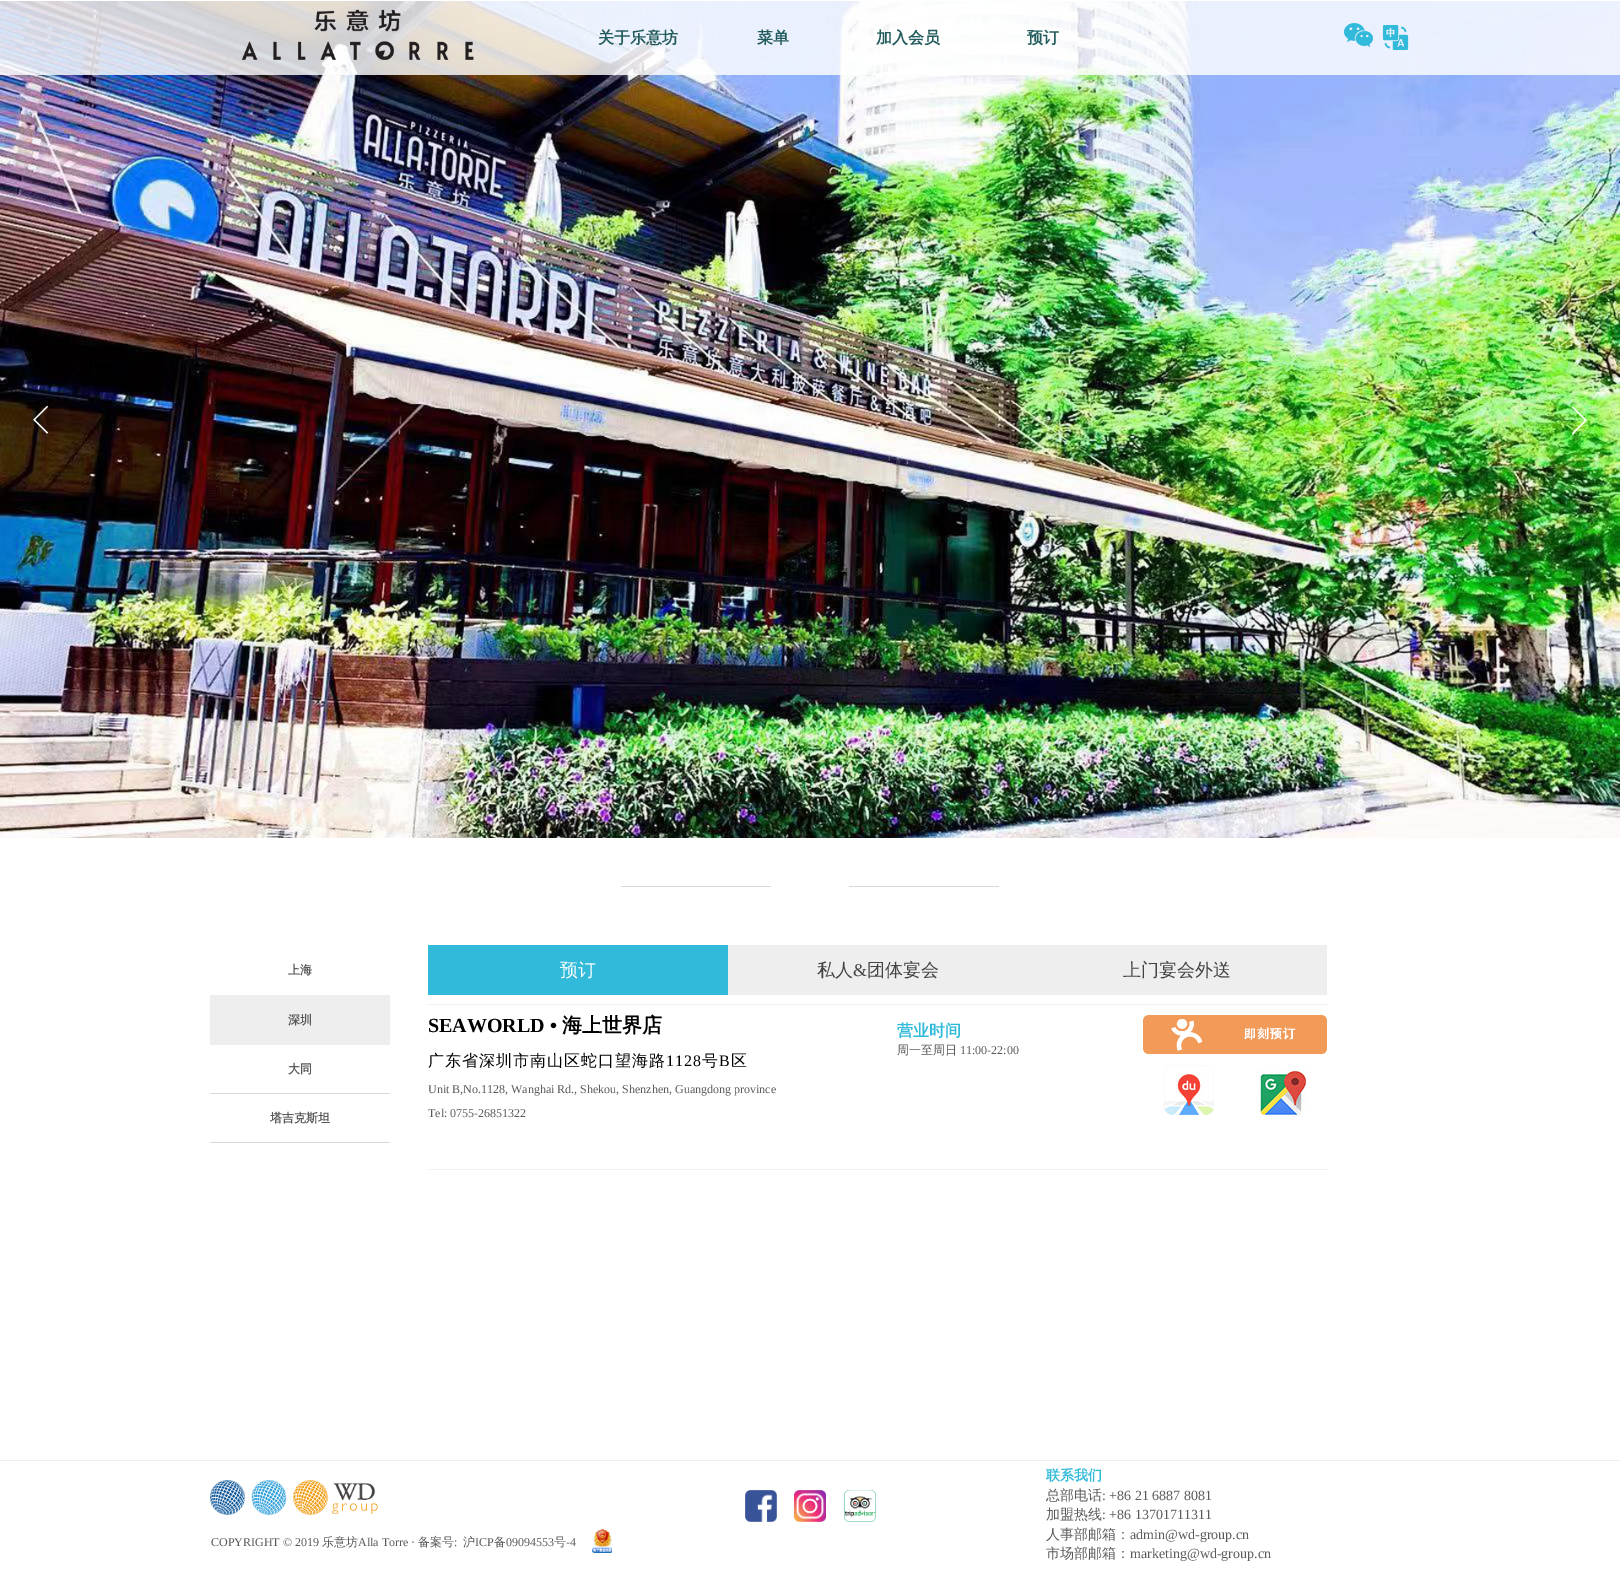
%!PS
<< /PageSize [1620 1589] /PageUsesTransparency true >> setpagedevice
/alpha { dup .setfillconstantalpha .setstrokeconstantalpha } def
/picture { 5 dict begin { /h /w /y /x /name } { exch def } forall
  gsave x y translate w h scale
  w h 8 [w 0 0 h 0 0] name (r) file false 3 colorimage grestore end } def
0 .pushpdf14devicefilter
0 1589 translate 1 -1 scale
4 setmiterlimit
1 setgray
0 0 1620 1589 rectfill
(img4.rgb) 0 1 1620 837 picture
0.81 alpha
0 1 1620 74 rectfill
1 alpha
(img1.rgb) 241 9 233 51 picture
/WenQuanYiZenHei-Bold [16 0 0 -16 0 0] selectfont
0.133 0.357 0.357 setrgbcolor
598 43 moveto (关于乐意坊) show
757 43 moveto (菜单) show
876 43 moveto (加入会员) show
1027 43 moveto (预订) show
(img2.rgb) 1344 23 29 24 picture
(img3.rgb) 1382 25 27 25 picture
(img5.rgb) 32 405 17 29 picture
(img6.rgb) 1571 406 17 29 picture
0.851 setgray
621 886 150 1 rectfill
849 886 150 1 rectfill
/WenQuanYiZenHei-Bold [12 0 0 -12 0 0] selectfont
0.353 setgray
288 974 moveto (上海) show
0.192 0.729 0.855 setrgbcolor
428 945 300 50 rectfill
/WenQuanYiZenHei-Medium [18 0 0 -18 0 0] selectfont
1 setgray
560 976 moveto (预订) show
0.933 setgray
728 945 599 50 rectfill
0.263 setgray
817 976 moveto (私人) show
/LiberationSerif-Regular [18 0 0 -18 0 0] selectfont
853 976 moveto (&) show
/WenQuanYiZenHei-Medium [18 0 0 -18 0 0] selectfont
867 976 moveto (团体宴会) show
1123 976 moveto (上门宴会外送) show
0.933 setgray
210 995 180 50 rectfill
/WenQuanYiZenHei-Bold [12 0 0 -12 0 0] selectfont
0.353 setgray
288 1024 moveto (深圳) show
0.949 setgray
428 1004 900 1 rectfill
428 1169 900 1 rectfill
/LiberationSerif-Bold [20 0 0 -20 0 0] selectfont
0 setgray
428 1032 moveto (SEAWORLD •) show
/WenQuanYiZenHei-Bold [20 0 0 -20 0 0] selectfont
562 1032 moveto (海上世界店) show
/WenQuanYiZenHei-Medium [16 0 0 -16 0 0] selectfont
428 1066 moveto 1 0 (广东省深圳市南山区蛇口望海路) ashow
/LiberationSerif-Regular [16 0 0 -16 0 0] selectfont
666 1066 moveto 1 0 (1128) ashow
/WenQuanYiZenHei-Medium [16 0 0 -16 0 0] selectfont
702 1066 moveto 1 0 (号) ashow
/LiberationSerif-Regular [16 0 0 -16 0 0] selectfont
719 1066 moveto 1 0 (B) ashow
/WenQuanYiZenHei-Medium [16 0 0 -16 0 0] selectfont
731 1066 moveto 1 0 (区) ashow
/LiberationSerif-Regular [12 0 0 -12 0 0] selectfont
0.353 setgray
428 1093 moveto (Unit B,No.1128, Wanghai Rd., Shekou, Shenzhen, Guangdong province) show
428 1117 moveto (Tel: 0755-26851322) show
/WenQuanYiZenHei-Bold [16 0 0 -16 0 0] selectfont
0.192 0.729 0.855 setrgbcolor
897 1036 moveto (营业时间) show
/WenQuanYiZenHei-Medium [12 0 0 -12 0 0] selectfont
0.353 setgray
897 1054 moveto (周一至周日) show
/LiberationSerif-Regular [12 0 0 -12 0 0] selectfont
960 1054 moveto (11:00-22:00) show
(img7.rgb) 1143 1015 184 39 picture
0.851 setgray
210 1093 180 1 rectfill
/WenQuanYiZenHei-Bold [12 0 0 -12 0 0] selectfont
0.353 setgray
288 1073 moveto (大同) show
(img8.rgb) 1159 1065 55 50 picture
(img9.rgb) 1259 1069 48 48 picture
0.851 setgray
210 1142 180 1 rectfill
0.353 setgray
270 1122 moveto (塔吉克斯坦) show
0.933 setgray
0 1460 1620 1 rectfill
(img10.rgb) 210 1480 168 35 picture
(img11.rgb) 745 1490 32 32 picture
(img12.rgb) 794 1490 32 32 picture
(img13.rgb) 844 1490 32 32 picture
/WenQuanYiZenHei-Bold [14 0 0 -14 0 0] selectfont
0.192 0.729 0.855 setrgbcolor
1046 1480 moveto (联系我们) show
/WenQuanYiZenHei-Medium [14 0 0 -14 0 0] selectfont
0.353 setgray
1046 1500 moveto (总部电话) show
/LiberationSerif-Regular [14 0 0 -14 0 0] selectfont
1102 1500 moveto (: +86 21 6887 8081) show
/WenQuanYiZenHei-Medium [14 0 0 -14 0 0] selectfont
1046 1519 moveto (加盟热线) show
/LiberationSerif-Regular [14 0 0 -14 0 0] selectfont
1102 1519 moveto (: +86 13701711311) show
/WenQuanYiZenHei-Medium [14 0 0 -14 0 0] selectfont
1046 1539 moveto (人事部邮箱：) show
/LiberationSerif-Regular [14 0 0 -14 0 0] selectfont
1130 1539 moveto (admin@wd-group.cn) show
/WenQuanYiZenHei-Medium [14 0 0 -14 0 0] selectfont
1046 1558 moveto (市场部邮箱：) show
/LiberationSerif-Regular [14 0 0 -14 0 0] selectfont
1130 1558 moveto (marketing@wd-group.cn) show
/LiberationSerif-Regular [12 0 0 -12 0 0] selectfont
211 1546 moveto (COPYRIGHT © 2019) show
/WenQuanYiZenHei-Medium [12 0 0 -12 0 0] selectfont
322 1546 moveto (乐意坊) show
/LiberationSerif-Regular [12 0 0 -12 0 0] selectfont
358 1546 moveto (Alla Torre ·) show
/WenQuanYiZenHei-Medium [12 0 0 -12 0 0] selectfont
418 1546 moveto (备案号) show
/LiberationSerif-Regular [12 0 0 -12 0 0] selectfont
454 1546 moveto (:) show
/WenQuanYiZenHei-Medium [12 0 0 -12 0 0] selectfont
463 1546 moveto (沪) show
/LiberationSerif-Regular [12 0 0 -12 0 0] selectfont
475 1546 moveto (ICP) show
/WenQuanYiZenHei-Medium [12 0 0 -12 0 0] selectfont
494 1546 moveto (备) show
/LiberationSerif-Regular [12 0 0 -12 0 0] selectfont
506 1546 moveto (09094553) show
/WenQuanYiZenHei-Medium [12 0 0 -12 0 0] selectfont
554 1546 moveto (号) show
/LiberationSerif-Regular [12 0 0 -12 0 0] selectfont
566 1546 moveto (-4) show
(img14.rgb) 592 1528 20 25 picture
.poppdf14devicefilter showpage
